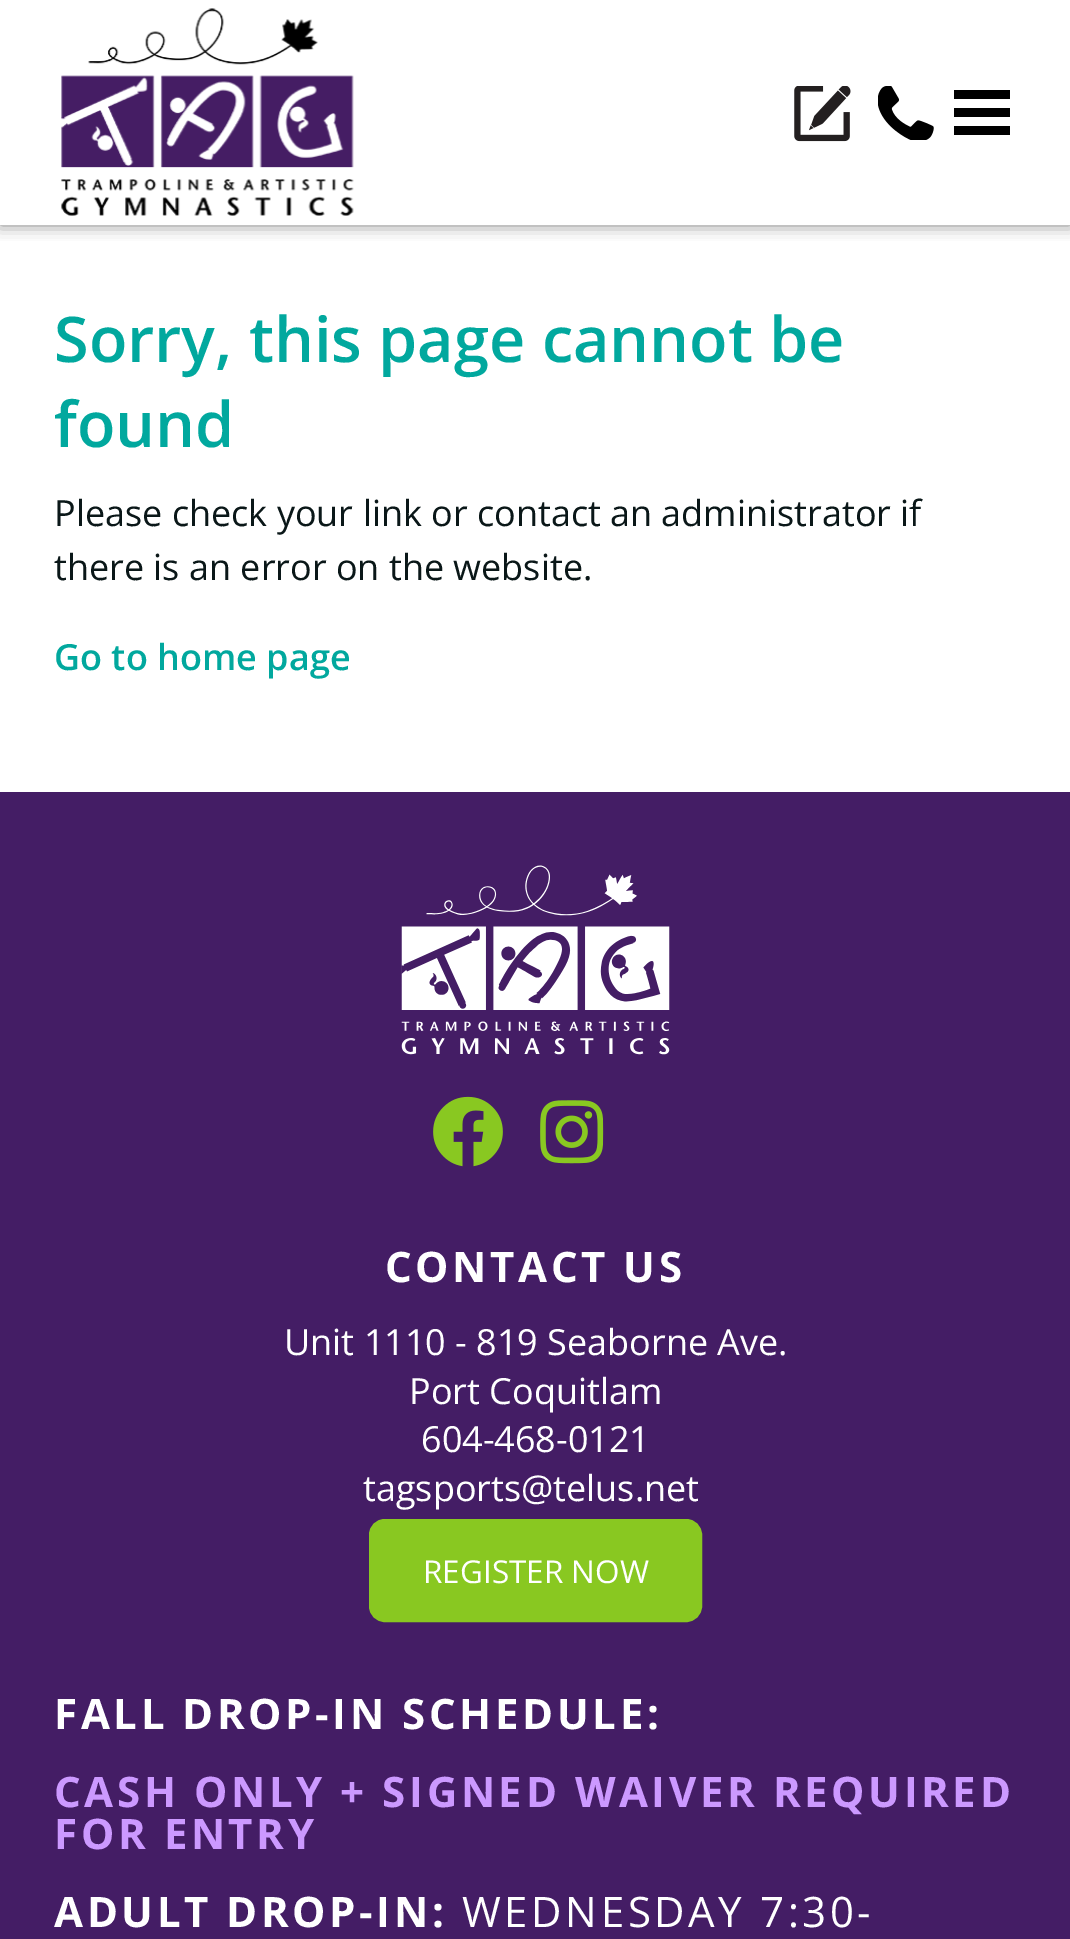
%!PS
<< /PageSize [1070 1939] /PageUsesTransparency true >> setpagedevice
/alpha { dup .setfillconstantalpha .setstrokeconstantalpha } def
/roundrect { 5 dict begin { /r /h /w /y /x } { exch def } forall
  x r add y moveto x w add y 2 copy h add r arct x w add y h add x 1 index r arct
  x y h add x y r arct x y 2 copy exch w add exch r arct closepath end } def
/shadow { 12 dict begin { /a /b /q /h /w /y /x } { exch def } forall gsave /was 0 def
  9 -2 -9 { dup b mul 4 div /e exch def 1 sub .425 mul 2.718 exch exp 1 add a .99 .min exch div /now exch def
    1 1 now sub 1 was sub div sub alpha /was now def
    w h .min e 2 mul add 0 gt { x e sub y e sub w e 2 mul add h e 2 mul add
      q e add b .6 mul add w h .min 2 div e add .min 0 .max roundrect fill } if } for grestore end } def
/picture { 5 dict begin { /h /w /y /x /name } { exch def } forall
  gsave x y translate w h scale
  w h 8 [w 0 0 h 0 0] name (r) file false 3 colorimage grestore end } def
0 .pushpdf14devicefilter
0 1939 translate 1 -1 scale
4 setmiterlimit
1 setgray
0 0 1070 1939 rectfill
gsave
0 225 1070 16 rectclip
0.51 setgray
0 0 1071 225 0 8 1 shadow
grestore
(img1.rgb) 61 8 293 208 picture
(img2.rgb) 794 86 57 56 picture
(img3.rgb) 878 86 56 54 picture
0 setgray
954 108 56 9 rectfill
954 90 56 9 rectfill
954 126 56 9 rectfill
/OpenSans-SemiBold [63 0 0 -63 0 0] selectfont
0.004 0.659 0.62 setrgbcolor
54 362 moveto (Sorry, this page cannot be) show
54 447 moveto (found) show
/OpenSans-Regular [36 0 0 -36 0 0] selectfont
0.039 0.09 0.094 setrgbcolor
54 526 moveto (Please check your link or contact an administrator if) show
54 580 moveto (there is an error on the website.) show
/OpenSans-SemiBold [36 0 0 -36 0 0] selectfont
0.004 0.659 0.62 setrgbcolor
54 670 moveto (Go to home page) show
0.267 0.114 0.396 setrgbcolor
0 792 1070 1147 rectfill
(img4.rgb) 401 865 269 190 picture
(img5.rgb) 433 1096 70 71 picture
(img6.rgb) 540 1100 64 64 picture
/OpenSans-Bold [42 0 0 -42 0 0] selectfont
1 setgray
385 1282 moveto 3.6 0 (CONTACT US) ashow
/OpenSans-Regular [36 0 0 -36 0 0] selectfont
284 1355 moveto (Unit 1110 - 819 Seaborne Ave.) show
409 1404 moveto (Port Coquitlam) show
421 1452 moveto (604-468-0121) show
363 1501 moveto (tagsports@telus.net) show
0.537 0.784 0.129 setrgbcolor
373.5 1523.5 324 94 11.5 roundrect gsave fill grestore
9 setlinewidth
stroke
/OpenSans-Regular [31.5 0 0 -31.5 0 0] selectfont
1 setgray
423 1583 moveto (REGISTER NOW) show
/OpenSans-Bold [42 0 0 -42 0 0] selectfont
54 1729 moveto 3.6 0 (FALL DROP-IN SCHEDULE:) ashow
0.8 0.6 1 setrgbcolor
54 1807 moveto 3.6 0 (CASH ONLY + SIGNED WAIVER REQUIRED) ashow
54 1849 moveto 3.6 0 (FOR ENTRY) ashow
1 setgray
54 1927 moveto 3.6 0 (ADULT DROP-IN:) ashow
/OpenSans-Regular [42 0 0 -42 0 0] selectfont
462 1927 moveto 3.6 0 (WEDNESDAY 7:30-) ashow
.poppdf14devicefilter showpage
